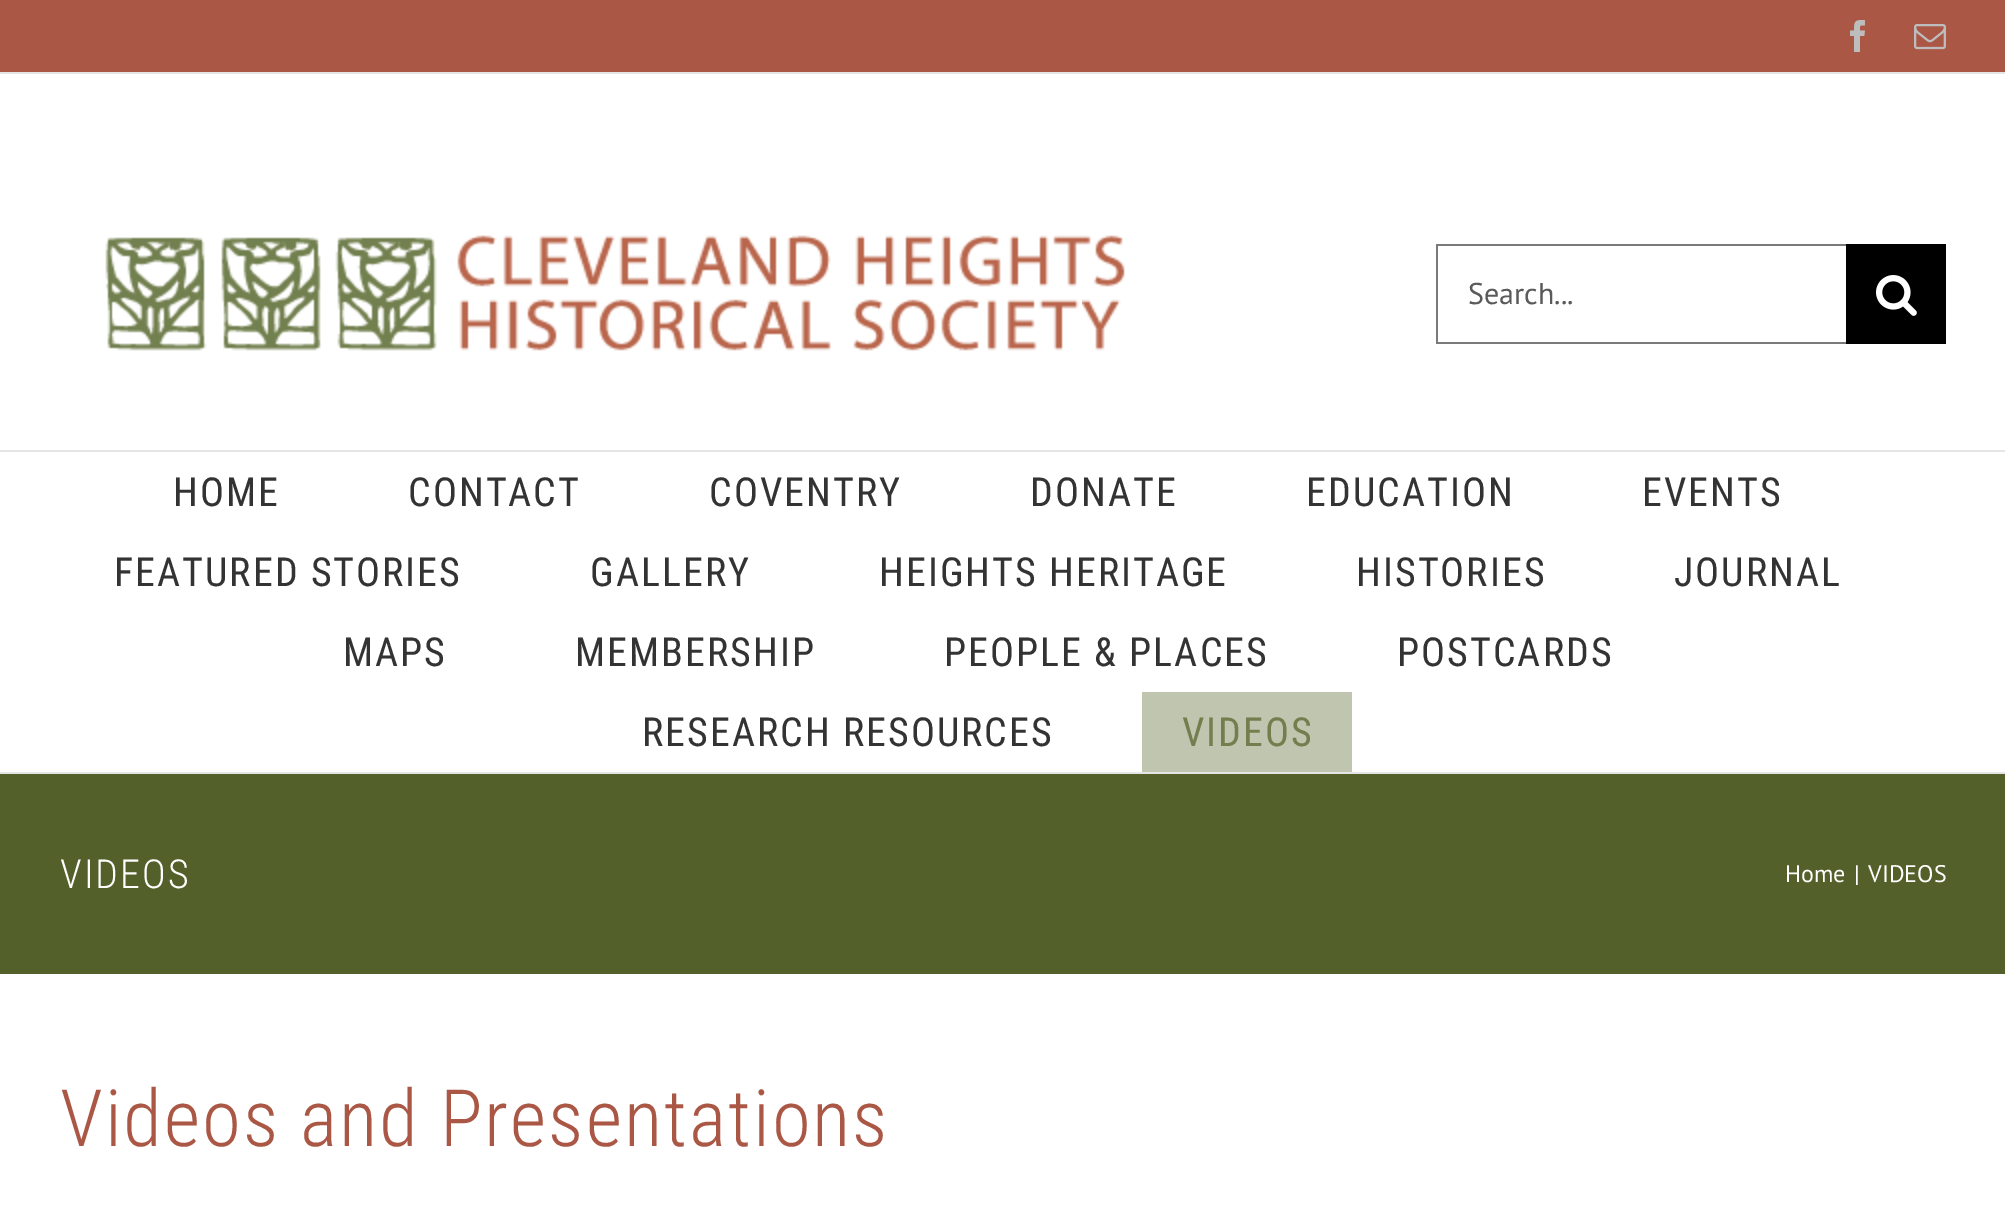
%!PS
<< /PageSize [2005 1219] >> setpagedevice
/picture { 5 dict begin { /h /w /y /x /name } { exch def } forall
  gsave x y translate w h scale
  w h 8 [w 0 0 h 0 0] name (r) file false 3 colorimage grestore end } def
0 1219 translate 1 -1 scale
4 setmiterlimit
1 setgray
0 0 2005 1219 rectfill
0.671 0.341 0.271 setrgbcolor
0 0 2005 72 rectfill
0.898 setgray
0 72 2005 2 rectfill
(img1.rgb) 1850 20 15 32 picture
(img2.rgb) 1914 24 32 26 picture
0 450 2005 2 rectfill
(img3.rgb) 105 235 1020 116 picture
0.478 setgray
1436 244 410 2 rectfill
1436 342 410 2 rectfill
1436 244 2 100 rectfill
/PTSans-Regular [30 0 0 -30 0 0] selectfont
0.357 0.349 0.349 setrgbcolor
1468 304 moveto (Search...) show
0 setgray
1846 244 100 100 rectfill
(img4.rgb) 1876 275 41 41 picture
0.898 setgray
0 772 2005 2 rectfill
/RobotoCondensed-Regular [40 0 0 -40 0 0] selectfont
0.2 setgray
173 506 moveto 2 0 (HOME) ashow
408 506 moveto 2 0 (CONTACT) ashow
709 506 moveto 2 0 (COVENTRY) ashow
1030 506 moveto 2 0 (DONATE) ashow
1306 506 moveto 2 0 (EDUCATION) ashow
1642 506 moveto 2 0 (EVENTS) ashow
114 586 moveto 2 0 (FEATURED STORIES) ashow
590 586 moveto 2 0 (GALLERY) ashow
879 586 moveto 2 0 (HEIGHTS HERITAGE) ashow
1356 586 moveto 2 0 (HISTORIES) ashow
1674 586 moveto 2 0 (JOURNAL) ashow
343 666 moveto 2 0 (MAPS) ashow
575 666 moveto 2 0 (MEMBERSHIP) ashow
944 666 moveto 2 0 (PEOPLE & PLACES) ashow
1397 666 moveto 2 0 (POSTCARDS) ashow
642 746 moveto 2 0 (RESEARCH RESOURCES) ashow
0.753 0.773 0.686 setrgbcolor
1142 692 210 80 rectfill
0.447 0.494 0.306 setrgbcolor
1182 746 moveto 2 0 (VIDEOS) ashow
0.329 0.376 0.161 setrgbcolor
0 774 2005 200 rectfill
/RobotoCondensed-Light [40 0 0 -40 0 0] selectfont
1 setgray
60 888 moveto 2 0 (VIDEOS) ashow
/PTSans-Regular [24 0 0 -24 0 0] selectfont
1785 882 moveto (Home) show
1854 882 moveto (|) show
1868 882 moveto (VIDEOS) show
/RobotoCondensed-Light [79 0 0 -79 0 0] selectfont
0.671 0.341 0.271 setrgbcolor
60 1146 moveto 2 0 (Videos and Presentations) ashow
showpage
